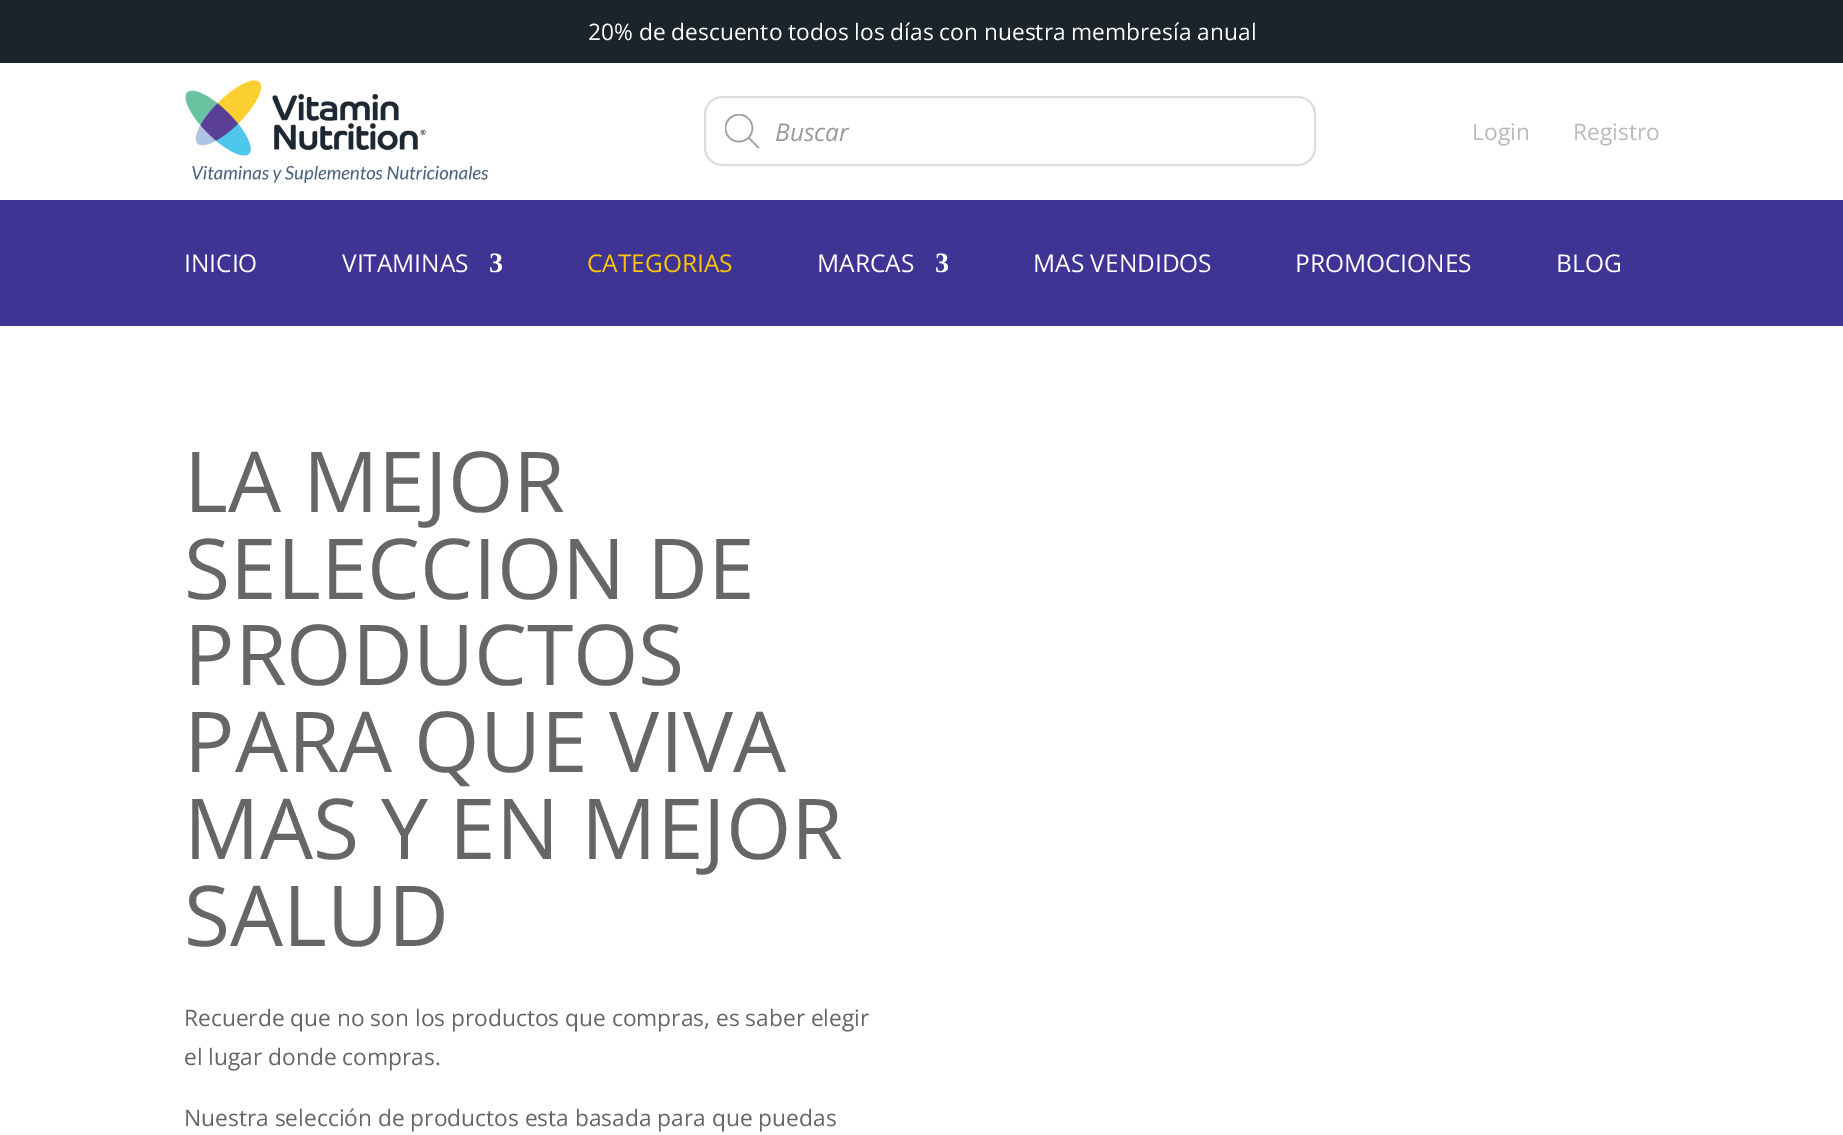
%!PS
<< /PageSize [1843 1135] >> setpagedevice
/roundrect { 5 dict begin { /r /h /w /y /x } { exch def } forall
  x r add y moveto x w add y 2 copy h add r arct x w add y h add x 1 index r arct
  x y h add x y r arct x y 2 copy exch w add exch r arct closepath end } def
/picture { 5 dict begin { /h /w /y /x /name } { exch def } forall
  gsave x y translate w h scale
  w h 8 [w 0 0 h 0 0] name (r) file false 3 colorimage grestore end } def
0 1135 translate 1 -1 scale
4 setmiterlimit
1 setgray
0 0 1843 1135 rectfill
0.106 0.141 0.169 setrgbcolor
0 0 1843 63 rectfill
/OpenSans-Regular [22.75 0 0 -22.75 0 0] selectfont
1 setgray
588 40 moveto (20% de descuento todos los días con nuestra membresía anual) show
(img1.rgb) 185 80 304 103 picture
0.867 setgray
2 setlinewidth
705 97 610 68 17 roundrect stroke
(img2.rgb) 725 114 35 35 picture
/OpenSans-Italic [24.5 0 0 -24.5 0 0] selectfont
0.6 setgray
775 141 moveto (Buscar) show
/OpenSans-Regular [22.75 0 0 -22.75 0 0] selectfont
0.729 setgray
1472 140 moveto (Login) show
1573 140 moveto (Registro) show
0.247 0.204 0.58 setrgbcolor
0 200 1843 126 rectfill
/OpenSans-Regular [24.5 0 0 -24.5 0 0] selectfont
1 setgray
184 272 moveto (INICIO) show
342 272 moveto (VITAMINAS) show
/LiberationSerif-Bold [28 0 0 -28 0 0] selectfont
489 272 moveto (3) show
/OpenSans-Regular [24.5 0 0 -24.5 0 0] selectfont
1 0.776 0 setrgbcolor
587 272 moveto (CATEGORIAS) show
1 setgray
817 272 moveto (MARCAS) show
/LiberationSerif-Bold [28 0 0 -28 0 0] selectfont
935 272 moveto (3) show
/OpenSans-Regular [24.5 0 0 -24.5 0 0] selectfont
1033 272 moveto (MAS VENDIDOS) show
1295 272 moveto (PROMOCIONES) show
1556 272 moveto (BLOG) show
/OpenSans-Regular [84 0 0 -84 0 0] selectfont
0.4 setgray
184 512 moveto (LA MEJOR) show
184 599 moveto (SELECCION DE) show
184 685 moveto (PRODUCTOS) show
184 772 moveto (PARA QUE VIVA) show
184 859 moveto (MAS Y EN MEJOR) show
184 946 moveto (SALUD) show
/OpenSans-Regular [22.75 0 0 -22.75 0 0] selectfont
184 1026 moveto (Recuerde que no son los productos que compras, es saber elegir) show
184 1065 moveto (el lugar donde compras.) show
184 1126 moveto (Nuestra selección de productos esta basada para que puedas) show
showpage
